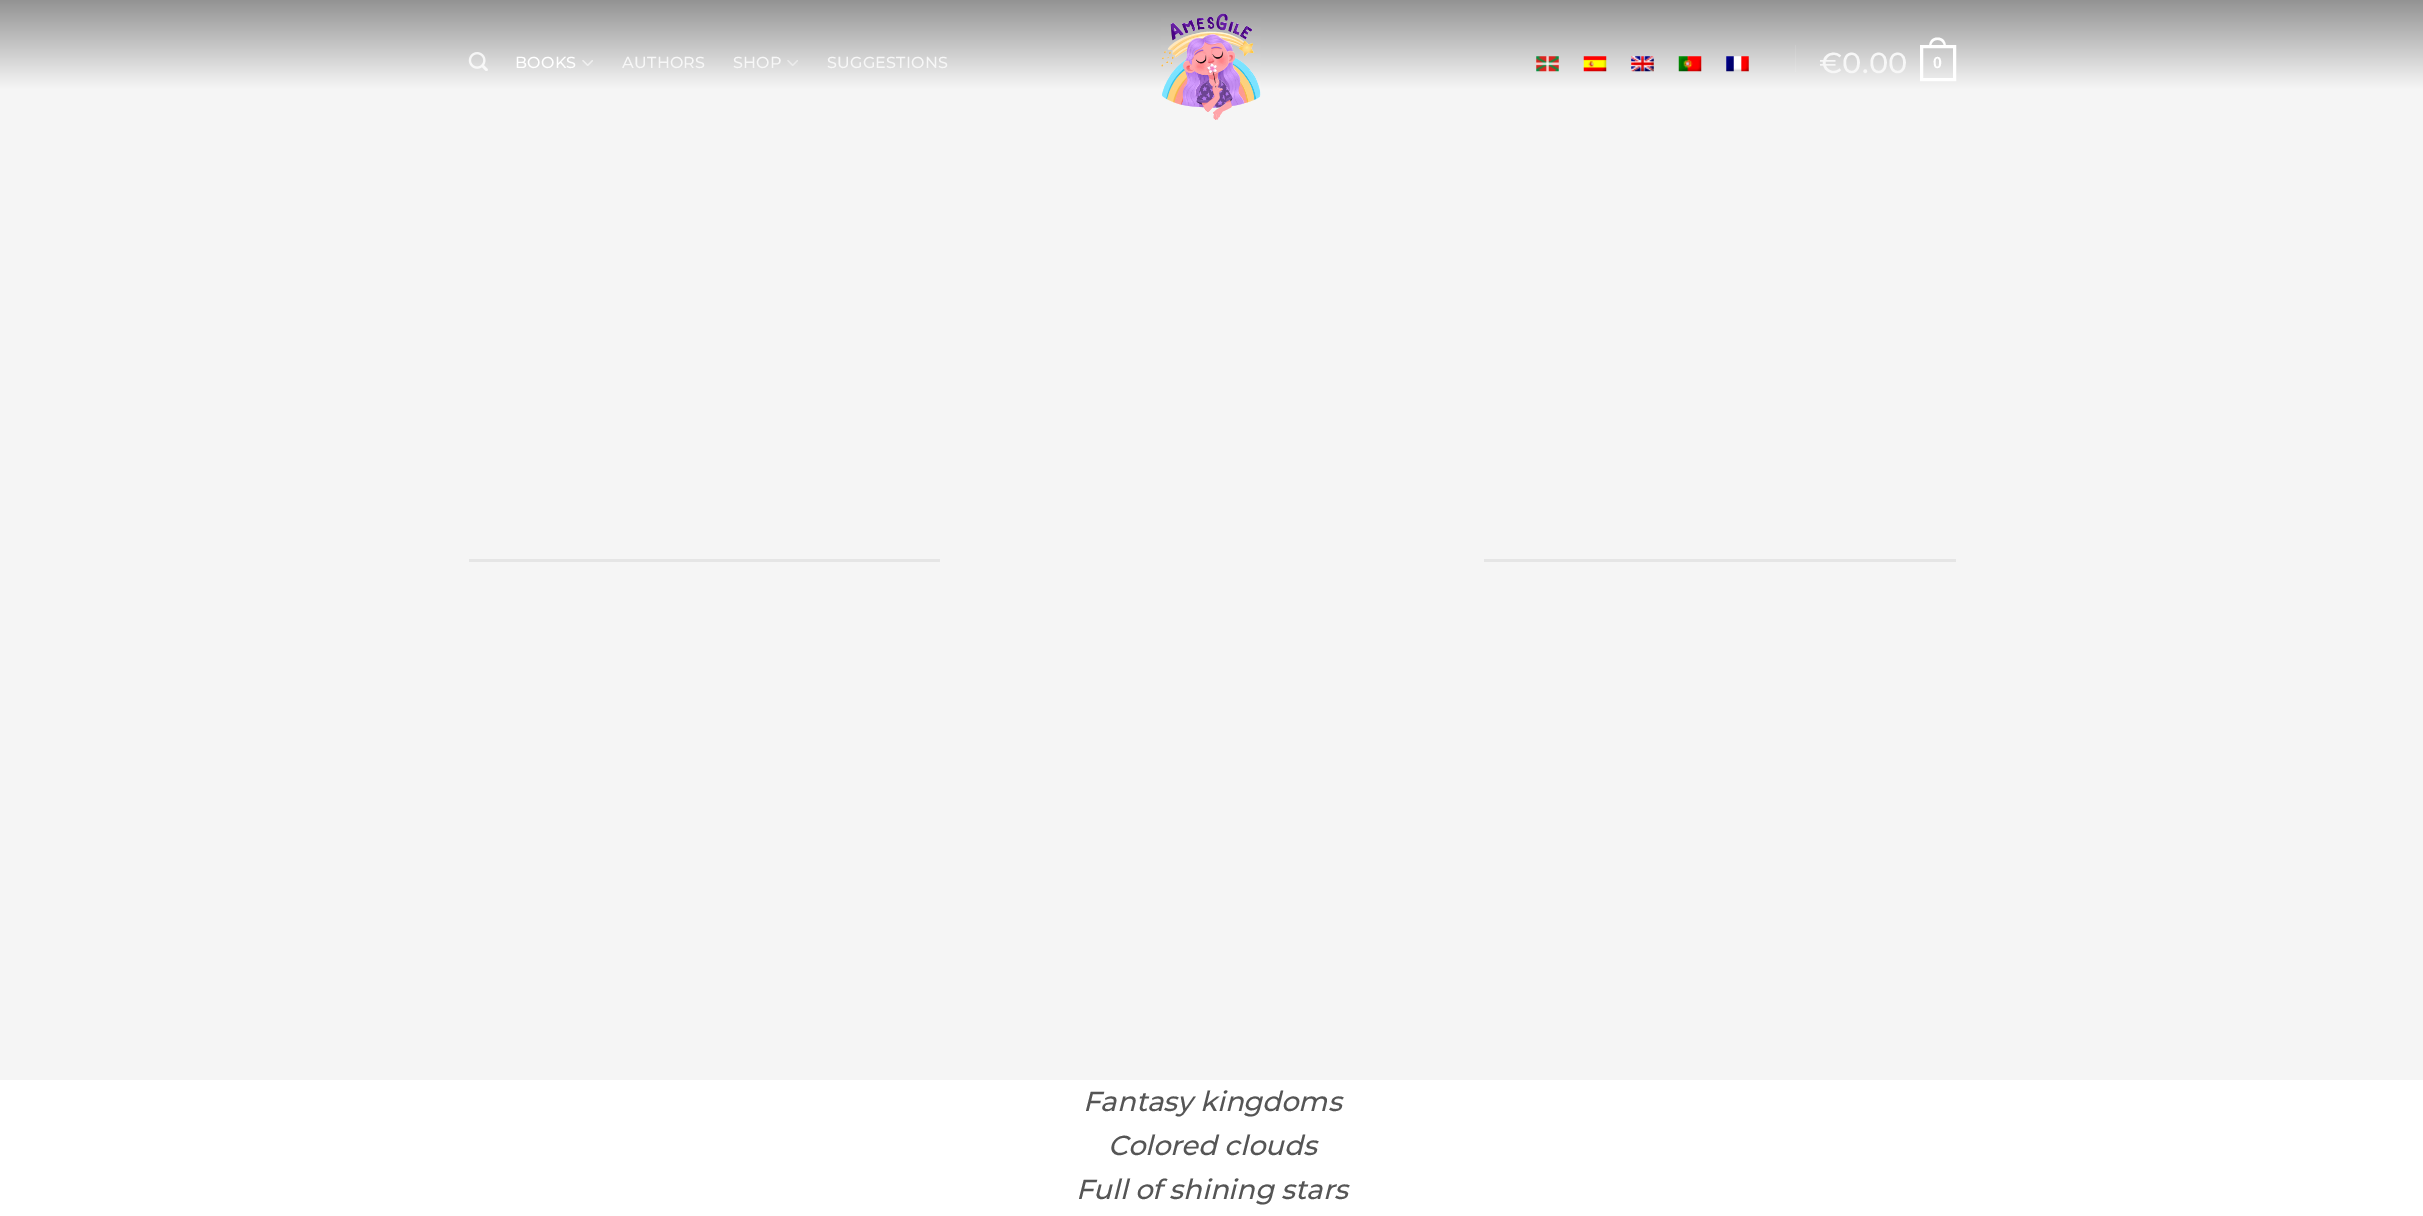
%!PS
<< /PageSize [2423 1216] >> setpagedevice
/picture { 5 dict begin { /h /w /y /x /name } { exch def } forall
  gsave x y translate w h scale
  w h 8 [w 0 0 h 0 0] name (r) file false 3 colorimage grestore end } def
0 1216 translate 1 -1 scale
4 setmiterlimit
1 setgray
0 0 2423 1216 rectfill
gsave newpath 0 0 moveto 2423 0 lineto 2423 126 lineto 0 126 lineto closepath clip newpath
<< /ShadingType 2 /ColorSpace /DeviceRGB /Coords [1212 0 1212 126] /Extend [true true] /Function << /FunctionType 3 /Domain [0 1] /Functions [<< /FunctionType 2 /Domain [0 1] /C0 [0.576 0.576 0.576] /C1 [0.961 0.961 0.961] /N 1 >> << /FunctionType 2 /Domain [0 1] /C0 [0.961 0.961 0.961] /C1 [0.961 0.961 0.961] /N 1 >>] /Bounds [0.7] /Encode [0 1 0 1] >> >> shfill grestore
gsave newpath 1795 45 moveto 1796 45 lineto 1796 72 lineto 1795 72 lineto closepath clip newpath
<< /ShadingType 2 /ColorSpace /DeviceRGB /Coords [1212 0 1212 126] /Extend [true true] /Function << /FunctionType 3 /Domain [0 1] /Functions [<< /FunctionType 2 /Domain [0 1] /C0 [0.62 0.62 0.62] /C1 [0.965 0.965 0.965] /N 1 >> << /FunctionType 2 /Domain [0 1] /C0 [0.965 0.965 0.965] /C1 [0.965 0.965 0.965] /N 1 >>] /Bounds [0.7] /Encode [0 1 0 1] >> >> shfill grestore
(img1.rgb) 468 52 20 19 picture
/Montserrat-Medium [16 0 0 -16 0 0] selectfont
515 68 moveto 0.25 0 (BOOKS) ashow
(img2.rgb) 582 60 11 6 picture
0.969 setgray
622 68 moveto 0.25 0 (AUTHORS) ashow
733 68 moveto 0.25 0 (SHOP) ashow
(img3.rgb) 787 60 11 6 picture
827 68 moveto 0.25 0 (SUGGESTIONS) ashow
(img4.rgb) 1161 13 100 107 picture
(img5.rgb) 1536 56 23 16 picture
(img6.rgb) 1583 56 24 16 picture
(img7.rgb) 1631 56 23 16 picture
(img8.rgb) 1678 56 24 16 picture
(img9.rgb) 1726 56 23 16 picture
/Montserrat-Medium [29 0 0 -29 0 0] selectfont
1819 73 moveto 0.25 0 (€0.00) ashow
1 setgray
3 setlinewidth
1921.5 46.5 33 33 rectstroke
newpath 1937.5 37.5 moveto 1943.5 37.5 1946 42 1946 47.5 curveto 1929 47.5 lineto 1929 42 1931.5 37.5 1937.5 37.5 curveto closepath 1937.5 40 moveto 1942 40 1944 43.5 1944 47.5 curveto 1931 47.5 lineto 1931 43.5 1933 40 1937.5 40 curveto closepath eofill
/LiberationSans-Bold [16 0 0 -16 0 0] selectfont
1933 68 moveto 0.25 0 (0) ashow
0.961 setgray
0 126 2423 954 rectfill
0.898 setgray
469 559 471 3 rectfill
1484 559 472 3 rectfill
/Montserrat-MediumItalic [27.5 0 0 -27.5 0 0] selectfont
0.333 setgray
1083 1111 moveto (Fantasy kingdoms) show
1108 1155 moveto (Colored clouds) show
1076 1199 moveto (Full of shining stars) show
showpage
